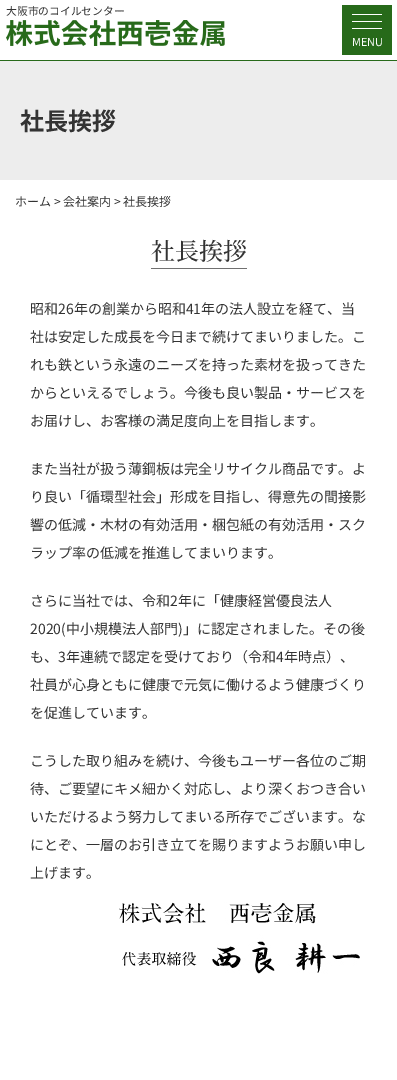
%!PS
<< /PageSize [397 1080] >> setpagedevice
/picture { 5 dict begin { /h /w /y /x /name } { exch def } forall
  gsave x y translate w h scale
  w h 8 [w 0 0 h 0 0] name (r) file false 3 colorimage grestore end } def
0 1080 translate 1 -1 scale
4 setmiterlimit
1 setgray
0 0 397 1080 rectfill
0.153 0.416 0.102 setrgbcolor
0 60 397 1 rectfill
/NotoSansJP-Regular [10.75 0 0 -10.75 0 0] selectfont
0.2 setgray
6 15 moveto (大阪市のコイルセンター) show
(img1.rgb) 6 20 219 26 picture
0.153 0.416 0.102 setrgbcolor
342 5 50 50 rectfill
1 setgray
352 14 30 1 rectfill
352 21 30 1 rectfill
352 28 30 1 rectfill
/NotoSansJP-Regular [11 0 0 -11 0 0] selectfont
352 46 moveto (MENU) show
0.929 setgray
0 61 397 119 rectfill
/NotoSansJP-Bold [24 0 0 -24 0 0] selectfont
0.2 setgray
20 130 moveto (社長挨拶) show
/NotoSansJP-Regular [12 0 0 -12 0 0] selectfont
15 206 moveto (ホーム > 会社案内 > 社長挨拶) show
0.439 setgray
151 268 96 1 rectfill
/NotoSerifJP-ExtraLight [24 0 0 -24 0 0] selectfont
0.2 setgray
151 260 moveto (社長挨拶) show
/NotoSansJP-Regular [14 0 0 -14 0 0] selectfont
30 314 moveto (昭和26年の創業から昭和41年の法人設立を経て、当) show
30 342 moveto (社は安定した成長を今日まで続けてまいりました。こ) show
30 370 moveto (れも鉄という永遠のニーズを持った素材を扱ってきた) show
30 398 moveto (からといえるでしょう。今後も良い製品・サービスを) show
30 426 moveto (お届けし、お客様の満足度向上を目指します。) show
30 474 moveto (また当社が扱う薄鋼板は完全リサイクル商品です。よ) show
30 502 moveto (り良い「循環型社会」形成を目指し、得意先の間接影) show
30 530 moveto (響の低減・木材の有効活用・梱包紙の有効活用・スク) show
30 558 moveto (ラップ率の低減を推進してまいります。) show
30 606 moveto (さらに当社では、令和2年に「健康経営優良法人) show
30 634 moveto (2020\(中小規模法人部門\)」に認定されました。その後) show
30 662 moveto (も、3年連続で認定を受けており（令和4年時点）、) show
30 690 moveto (社員が心身ともに健康で元気に働けるよう健康づくり) show
30 718 moveto (を促進しています。) show
30 766 moveto (こうした取り組みを続け、今後もユーザー各位のご期) show
30 794 moveto (待、ご要望にキメ細かく対応し、より深くおつき合い) show
30 822 moveto (いただけるよう努力してまいる所存でございます。な) show
30 850 moveto (にとぞ、一層のお引き立てを賜りますようお願い申し) show
30 878 moveto (上げます。) show
(img2.rgb) 119 902 241 72 picture
showpage
